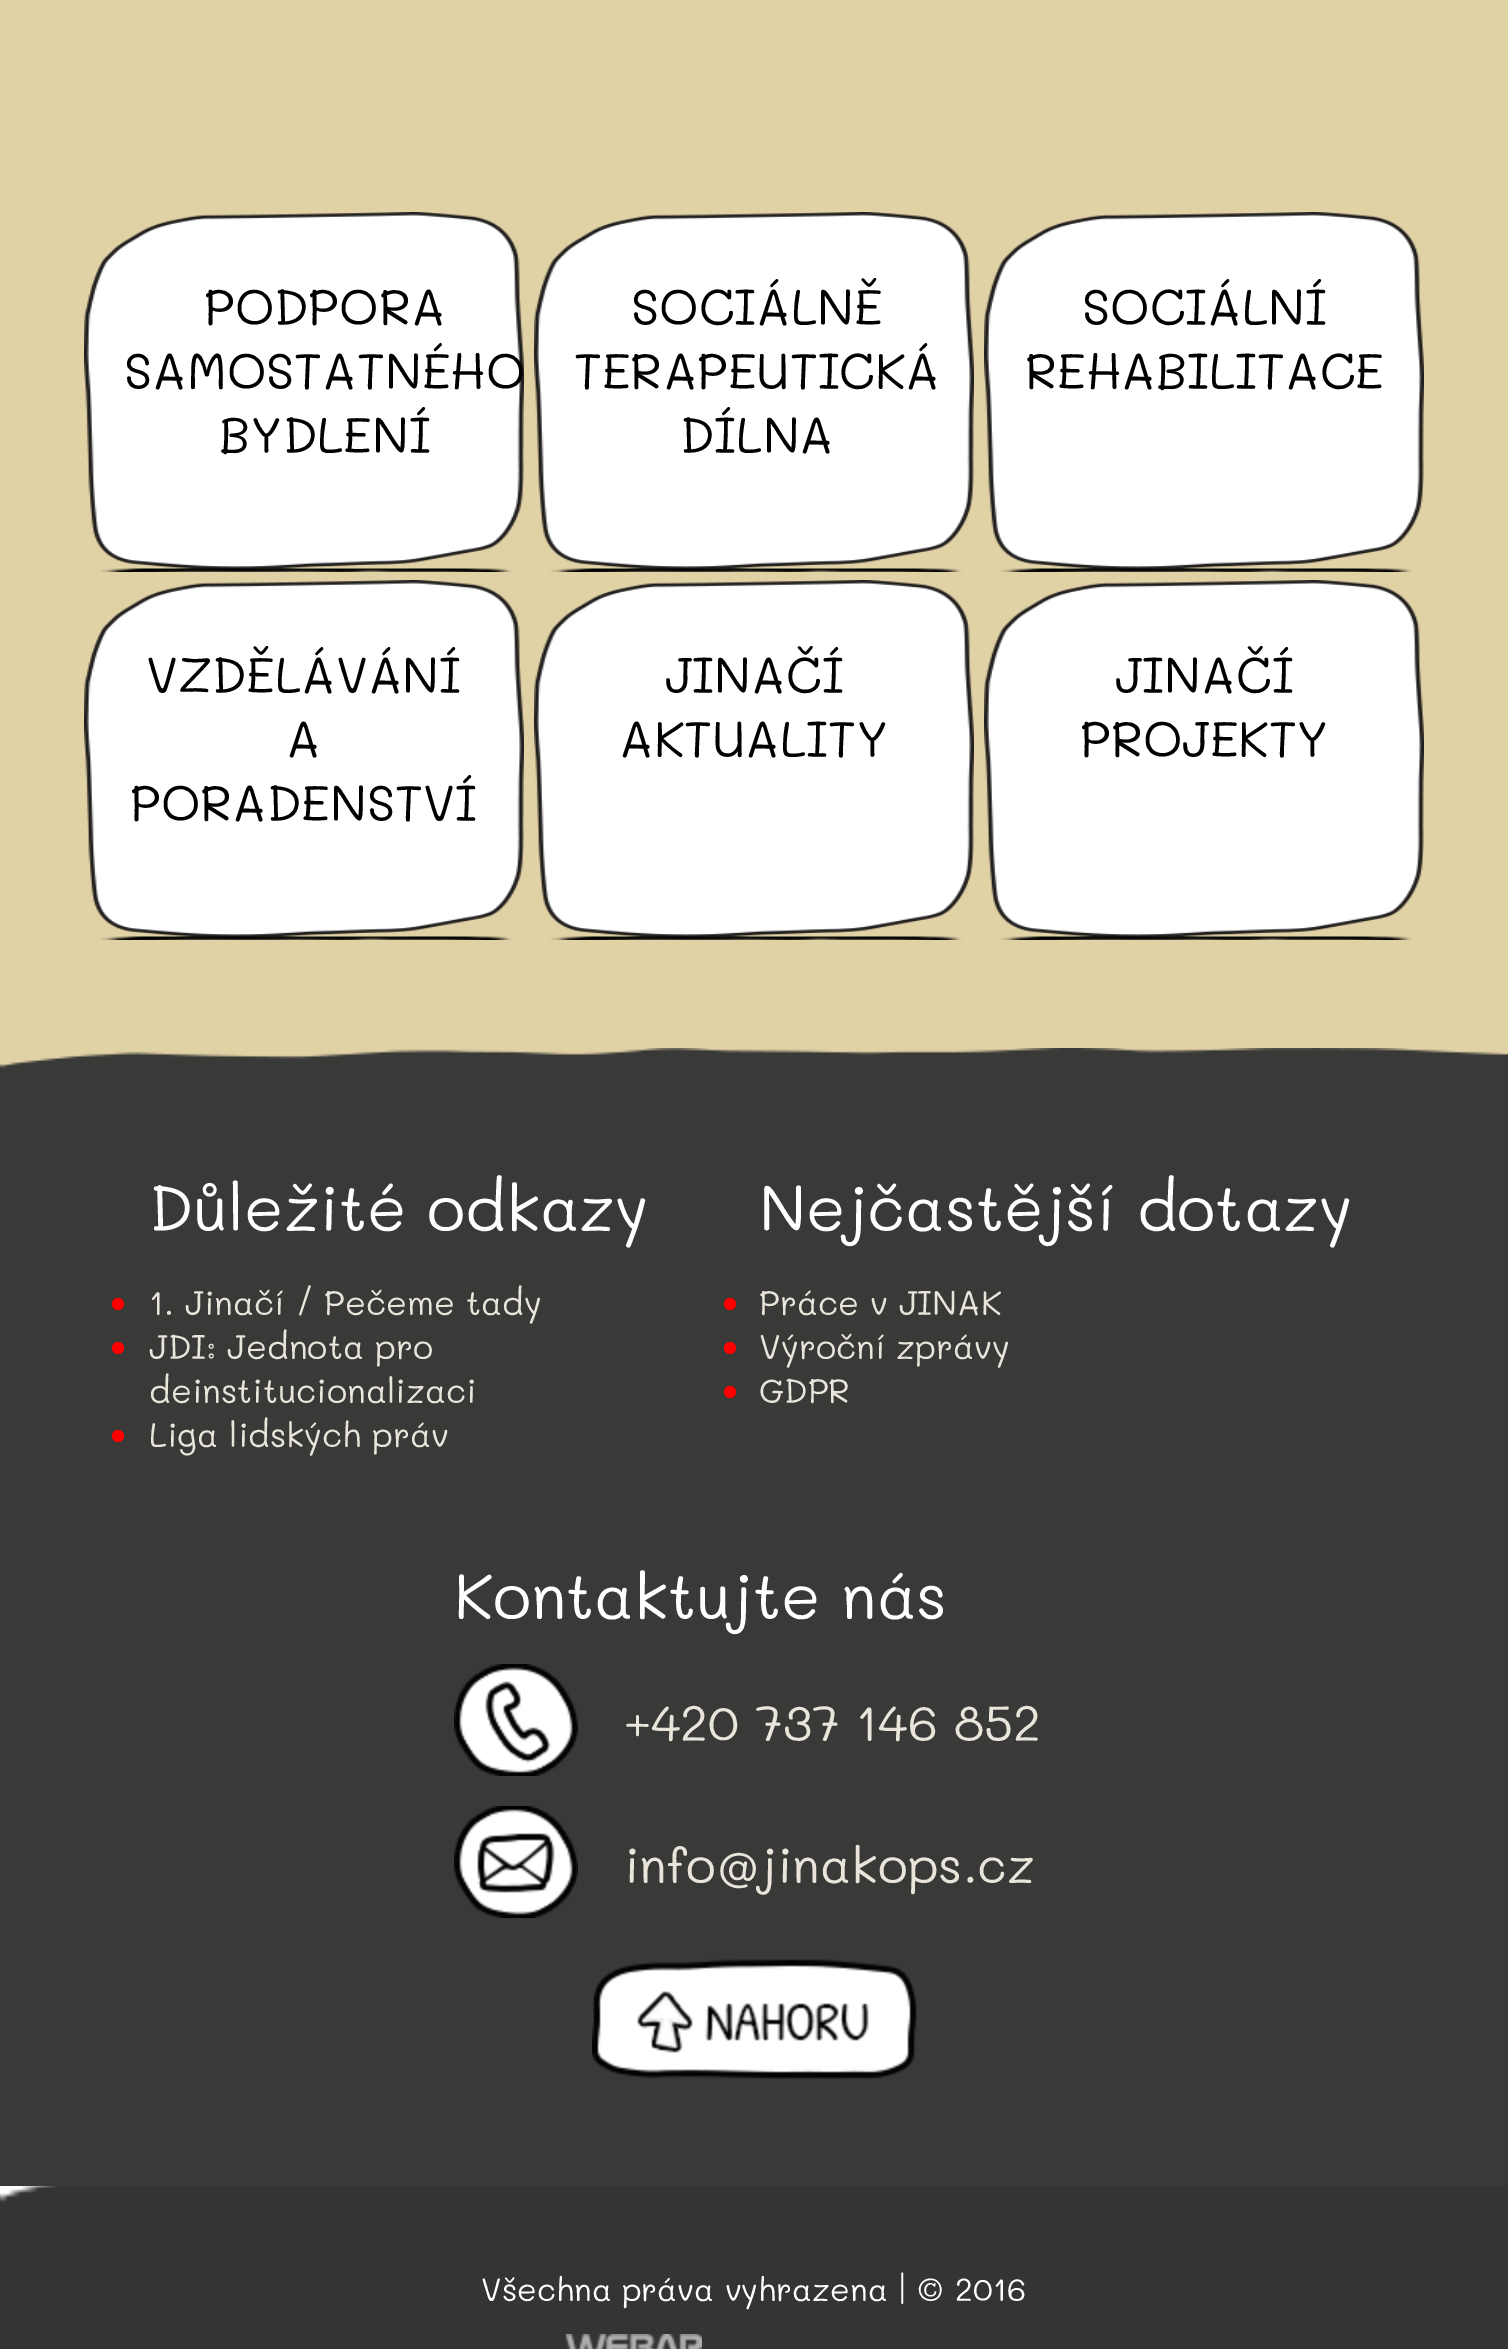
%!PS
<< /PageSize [1508 2349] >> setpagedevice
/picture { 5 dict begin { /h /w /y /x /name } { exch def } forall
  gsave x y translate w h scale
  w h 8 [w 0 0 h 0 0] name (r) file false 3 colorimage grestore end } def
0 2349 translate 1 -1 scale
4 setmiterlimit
1 setgray
0 0 1508 2349 rectfill
0.882 0.824 0.651 setrgbcolor
0 0 1508 1068 rectfill
(img1.rgb) 84 212 440 360 picture
/Mali-Regular [50 0 0 -50 0 0] selectfont
0 setgray
204 325 moveto (PODPORA) show
124 389 moveto (SAMOSTATNÉHO) show
219 453 moveto (BYDLENÍ) show
(img2.rgb) 534 212 440 360 picture
631 325 moveto (SOCIÁLNĚ) show
574 389 moveto (TERAPEUTICKÁ) show
680 453 moveto (DÍLNA) show
(img2.rgb) 984 212 440 360 picture
1082 325 moveto (SOCIÁLNÍ) show
1025 389 moveto (REHABILITACE) show
(img3.rgb) 84 580 440 360 picture
146 693 moveto (VZDĚLÁVÁNÍ) show
286 757 moveto (A) show
130 821 moveto (PORADENSTVÍ) show
(img4.rgb) 534 580 440 360 picture
665 693 moveto (JINAČÍ) show
619 757 moveto (AKTUALITY) show
(img4.rgb) 984 580 440 360 picture
1115 693 moveto (JINAČÍ) show
1080 757 moveto (PROJEKTY) show
(img5.rgb) 0 1048 1508 1138 picture
/Mali-Regular [64 0 0 -64 0 0] selectfont
1 setgray
149 1231 moveto (Důležité odkazy) show
1 0 0 setrgbcolor
newpath 118 1304 6 0 360 arc closepath fill
/Mali-Regular [34 0 0 -34 0 0] selectfont
0.914 0.898 0.859 setrgbcolor
149 1315 moveto (1. Jinačí / Pečeme tady) show
1 0 0 setrgbcolor
newpath 118 1348 6 0 360 arc closepath fill
0.914 0.898 0.859 setrgbcolor
149 1359 moveto (JDI: Jednota pro) show
149 1403 moveto (deinstitucionalizaci) show
1 0 0 setrgbcolor
newpath 118 1436 6 0 360 arc closepath fill
0.914 0.898 0.859 setrgbcolor
149 1447 moveto (Liga lidských práv) show
/Mali-Regular [64 0 0 -64 0 0] selectfont
1 setgray
759 1231 moveto (Nejčastější dotazy) show
1 0 0 setrgbcolor
newpath 730 1304 6 0 360 arc closepath fill
/Mali-Regular [34 0 0 -34 0 0] selectfont
0.914 0.898 0.859 setrgbcolor
759 1315 moveto (Práce v JINAK) show
1 0 0 setrgbcolor
newpath 730 1348 6 0 360 arc closepath fill
0.914 0.898 0.859 setrgbcolor
759 1359 moveto (Výroční zprávy) show
1 0 0 setrgbcolor
newpath 730 1392 6 0 360 arc closepath fill
0.914 0.898 0.859 setrgbcolor
759 1403 moveto (GDPR) show
/Mali-Regular [64 0 0 -64 0 0] selectfont
1 setgray
454 1619 moveto (Kontaktujte nás) show
(img6.rgb) 454 1664 124 112 picture
/Mali-Regular [50 0 0 -50 0 0] selectfont
0.914 0.898 0.859 setrgbcolor
624 1741 moveto (+420 737 146 852) show
(img7.rgb) 454 1806 124 112 picture
624 1883 moveto (info@jinakops.cz) show
(img8.rgb) 592 1959 325 120 picture
(img9.rgb) 0 2186 1508 163 picture
/Mali-Regular [32 0 0 -32 0 0] selectfont
1 setgray
481 2301 moveto (Všechna práva vyhrazena | © 2016) show
(img10.rgb) 566 2334 136 15 picture
showpage
